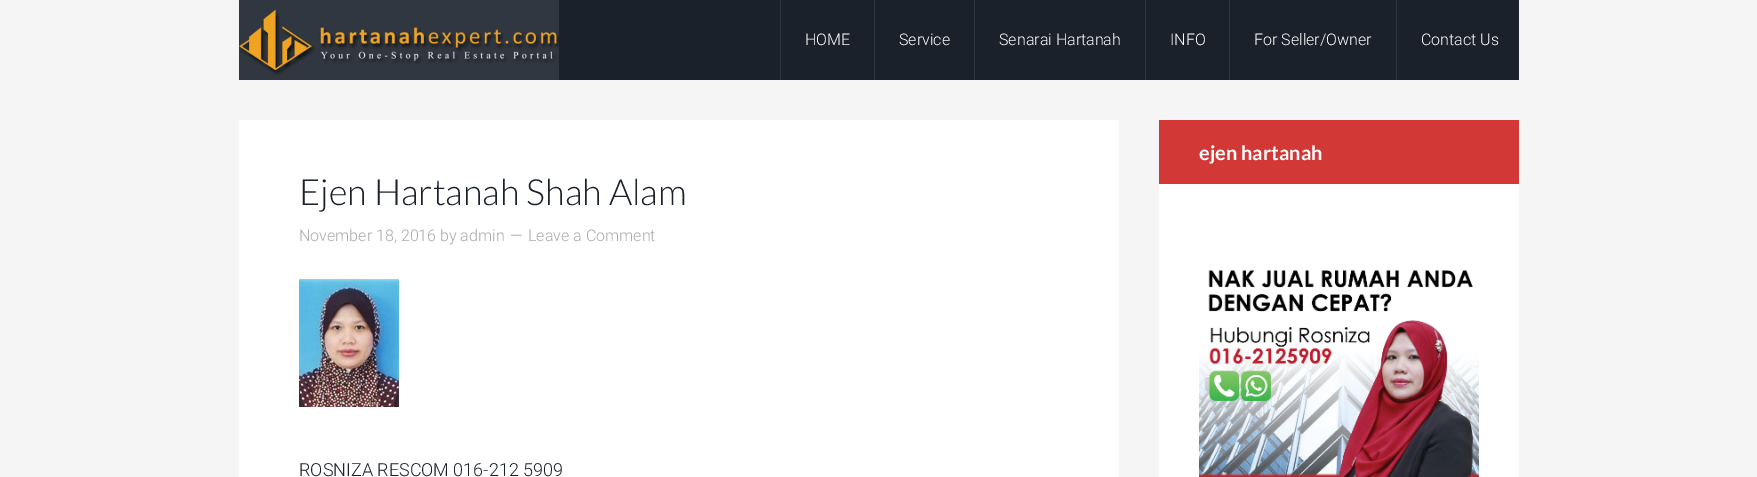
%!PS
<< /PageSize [1757 477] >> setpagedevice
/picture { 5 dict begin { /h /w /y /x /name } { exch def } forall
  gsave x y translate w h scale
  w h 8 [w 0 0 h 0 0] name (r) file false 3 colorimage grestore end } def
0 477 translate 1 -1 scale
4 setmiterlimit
0.961 setgray
0 0 1757 477 rectfill
0.102 0.129 0.169 setrgbcolor
559 0 960 80 rectfill
0.192 0.216 0.251 setrgbcolor
239 0 320 80 rectfill
(img1.rgb) 239 9 320 66 picture
780 0 1 80 rectfill
/Roboto-Light [16 0 0 -16 0 0] selectfont
1 setgray
805 45 moveto (HOME) show
0.192 0.216 0.251 setrgbcolor
874 0 1 80 rectfill
1 setgray
899 45 moveto (Service) show
0.192 0.216 0.251 setrgbcolor
974 0 1 80 rectfill
1 setgray
999 45 moveto (Senarai Hartanah) show
0.192 0.216 0.251 setrgbcolor
1145 0 1 80 rectfill
1 setgray
1170 45 moveto (INFO) show
0.192 0.216 0.251 setrgbcolor
1229 0 1 80 rectfill
1 setgray
1254 45 moveto (For Seller/Owner) show
0.192 0.216 0.251 setrgbcolor
1396 0 1 80 rectfill
1 setgray
1421 45 moveto (Contact Us) show
1159 184 360 293 rectfill
0.824 0.22 0.212 setrgbcolor
1159 120 360 64 rectfill
/Lato-Bold [20 0 0 -20 0 0] selectfont
1 setgray
1199 160 moveto (ejen hartanah) show
(img2.rgb) 1199 270 280 207 picture
239 120 880 357 rectfill
/Lato-Light [36 0 0 -36 0 0] selectfont
0.102 0.129 0.169 setrgbcolor
299 205 moveto (Ejen Hartanah Shah Alam) show
/Roboto-Light [16 0 0 -16 0 0] selectfont
0.667 setgray
299 241 moveto (November 18, 2016 by admin) show
510 241 moveto (—) show
528 241 moveto (Leave a Comment) show
(img3.rgb) 299 279 100 128 picture
/Roboto-Light [18 0 0 -18 0 0] selectfont
0.102 0.129 0.169 setrgbcolor
299 476 moveto (ROSNIZA RESCOM 016-212 5909) show
showpage
